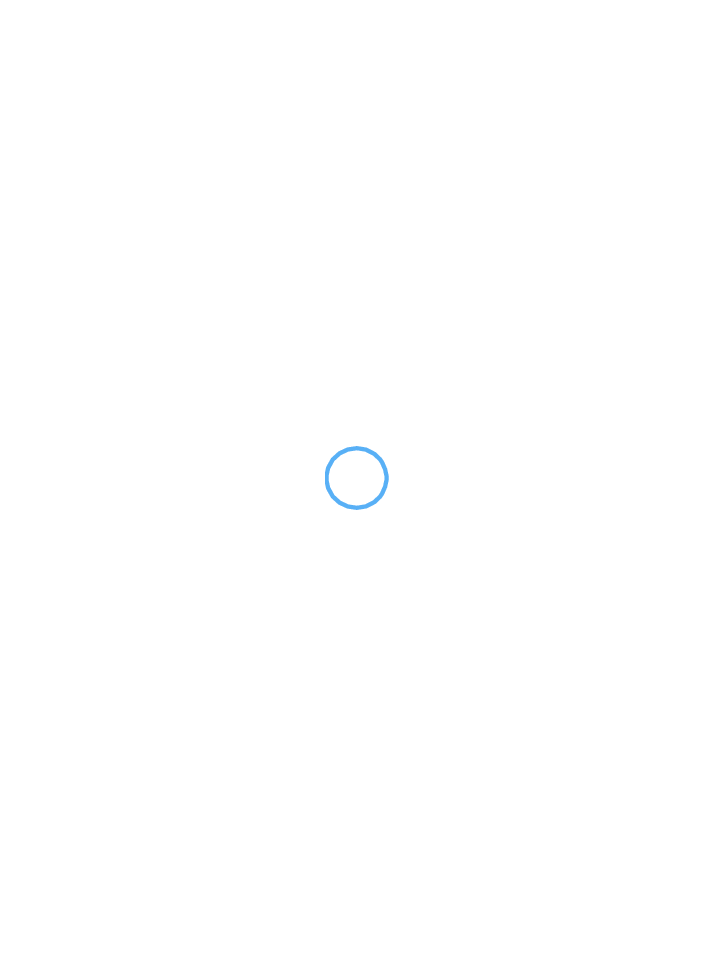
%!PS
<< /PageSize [713 956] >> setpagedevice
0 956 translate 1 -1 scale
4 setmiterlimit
1 setgray
0 0 713 956 rectfill
gsave
325 446 64 32 rectclip
0.345 0.69 0.965 setrgbcolor
4 setlinewidth
newpath 326.5 478 moveto 326.5 448.5 365 437 381.5 461.5 curveto 384.5 466.5 386.5 472 386.5 478 curveto stroke
grestore
gsave
325 478 64 32 rectclip
0.345 0.69 0.965 setrgbcolor
4 setlinewidth
newpath 386.5 478 moveto 386.5 484 384.5 489.5 381.5 494.5 curveto 365 519 326.5 507.5 326.5 478 curveto stroke
grestore
showpage
